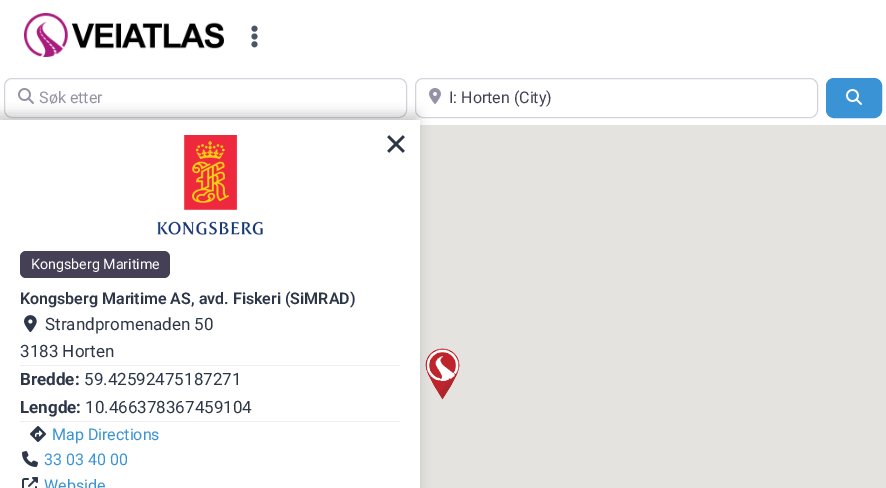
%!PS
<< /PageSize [886 488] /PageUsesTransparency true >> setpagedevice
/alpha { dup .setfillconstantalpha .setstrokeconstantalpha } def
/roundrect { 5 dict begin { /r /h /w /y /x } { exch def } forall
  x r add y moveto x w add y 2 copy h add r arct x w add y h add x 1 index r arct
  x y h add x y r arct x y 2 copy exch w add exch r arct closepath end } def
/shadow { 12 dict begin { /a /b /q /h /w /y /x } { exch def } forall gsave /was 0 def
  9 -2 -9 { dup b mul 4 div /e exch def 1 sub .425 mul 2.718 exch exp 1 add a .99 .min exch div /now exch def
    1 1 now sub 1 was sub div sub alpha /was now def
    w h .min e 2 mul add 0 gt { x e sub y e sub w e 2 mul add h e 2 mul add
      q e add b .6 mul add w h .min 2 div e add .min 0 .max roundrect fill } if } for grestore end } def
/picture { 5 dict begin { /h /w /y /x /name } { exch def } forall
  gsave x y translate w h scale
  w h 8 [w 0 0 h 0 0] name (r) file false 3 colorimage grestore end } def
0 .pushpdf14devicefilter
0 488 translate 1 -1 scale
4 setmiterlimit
1 setgray
0 0 886 488 rectfill
(img1.rgb) 24 13 200 44 picture
(img2.rgb) 251 25 7 23 picture
0.835 0.824 0.863 setrgbcolor
4.5 78.5 402 39 7.5 roundrect stroke
(img3.rgb) 18 88 16 16 picture
/Roboto-Regular [16 0 0 -16 0 0] selectfont
0.588 0.569 0.643 setrgbcolor
39 103 moveto (Søk etter) show
0.835 0.824 0.863 setrgbcolor
415.5 78.5 402 39 7.5 roundrect stroke
(img4.rgb) 429 88 12 16 picture
0.271 0.251 0.337 setrgbcolor
449 103 moveto (I: Horten \(City\)) show
0.224 0.576 0.835 setrgbcolor
826.5 78.5 55 39 7.5 roundrect gsave fill grestore
stroke
(img5.rgb) 846 89 16 16 picture
0.898 0.89 0.875 setrgbcolor
420 125 466 363 rectfill
(img6.rgb) 425 348 35 52 picture
0 setgray
-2 114 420 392 0 6 0.2 shadow
1 setgray
0 120 420 368 rectfill
(img7.rgb) 387 135 18 18 picture
(img8.rgb) 157 135 106 100 picture
0.271 0.251 0.337 setrgbcolor
20 251 150 27 6 roundrect fill
/Roboto-Regular [14.25 0 0 -14.25 0 0] selectfont
1 setgray
31 269 moveto (Kongsberg Maritime) show
/Roboto-SemiBold [16 0 0 -16 0 0] selectfont
0.176 0.216 0.282 setrgbcolor
20 304 moveto (Kongsberg Maritime AS, avd. Fiskeri \(SiMRAD\)) show
(img9.rgb) 24 315 13 18 picture
/Roboto-Regular [17 0 0 -17 0 0] selectfont
45 330 moveto (Strandpromenaden 50) show
20 357 moveto (3183 Horten) show
0.937 0.925 0.953 setrgbcolor
20 365 380 1 rectfill
/Roboto-Bold [17 0 0 -17 0 0] selectfont
0.176 0.216 0.282 setrgbcolor
20 385 moveto (Bredde:) show
/Roboto-Regular [17 0 0 -17 0 0] selectfont
84 385 moveto (59.42592475187271) show
/Roboto-Bold [17 0 0 -17 0 0] selectfont
20 413 moveto (Lengde:) show
/Roboto-Regular [17 0 0 -17 0 0] selectfont
85 413 moveto (10.466378367459104) show
0.937 0.925 0.953 setrgbcolor
20 421 380 1 rectfill
(img10.rgb) 30 426 16 16 picture
/Roboto-Regular [16 0 0 -16 0 0] selectfont
0.224 0.576 0.835 setrgbcolor
52 440 moveto (Map Directions) show
(img11.rgb) 22 451 16 16 picture
44 465 moveto (33 03 40 00) show
(img12.rgb) 22 477 16 11 picture
44 491 moveto (Webside) show
.poppdf14devicefilter showpage
